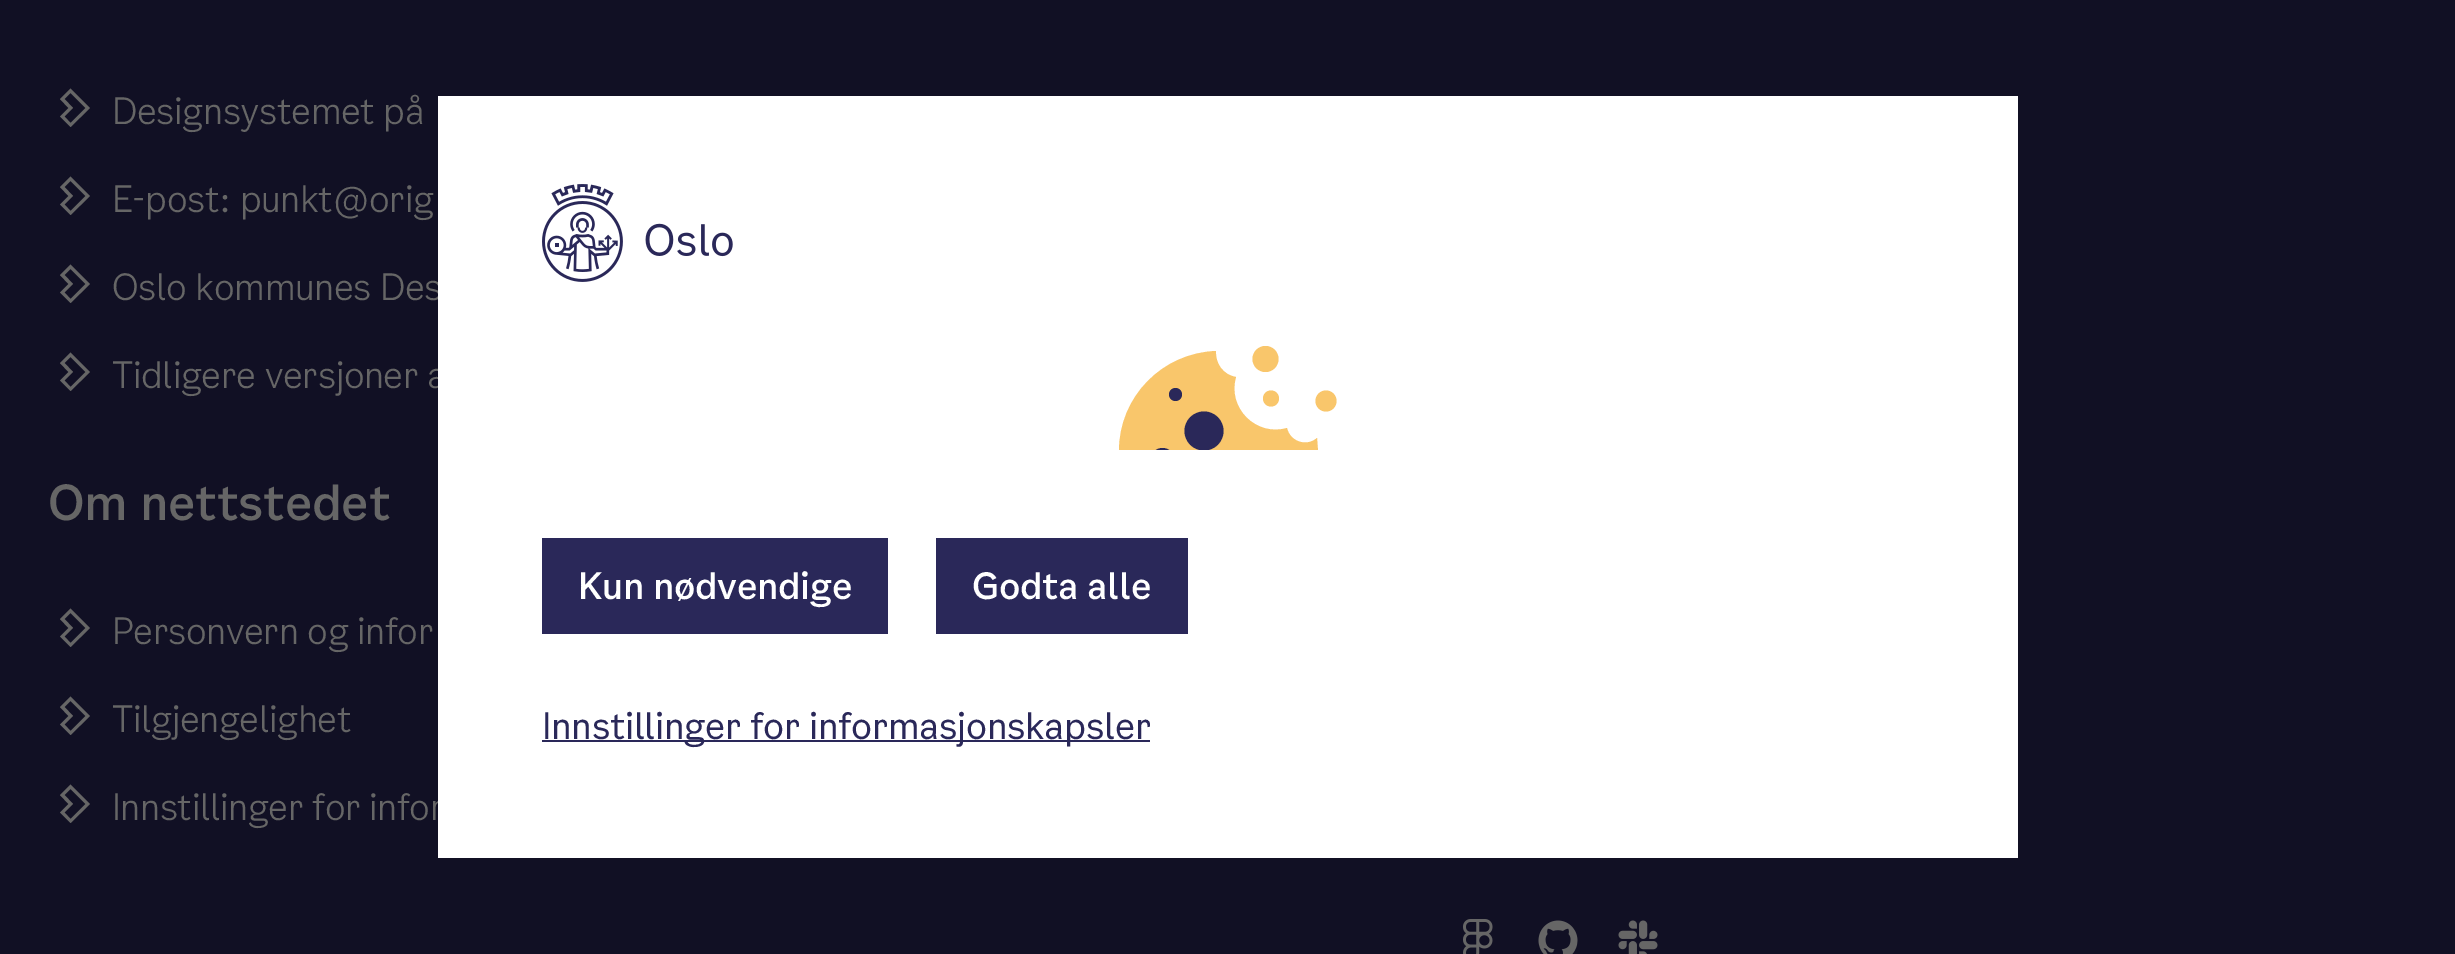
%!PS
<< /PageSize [2455 954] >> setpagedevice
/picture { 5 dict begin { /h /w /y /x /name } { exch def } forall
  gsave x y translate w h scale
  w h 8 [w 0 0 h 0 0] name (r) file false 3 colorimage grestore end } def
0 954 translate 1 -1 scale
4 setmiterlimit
0.067 0.063 0.141 setrgbcolor
0 0 2455 954 rectfill
0.4 setgray
newpath 85.5 108 moveto 70.5 93 lineto 64.5 99 lineto 73 108 lineto 64.5 116.5 lineto 70.5 123 lineto closepath 60 99 moveto 70.5 88.5 lineto 90 108 lineto 70.5 127 lineto 60 116.5 lineto 68.5 108 lineto closepath eofill
/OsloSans-Light [36 0 0 -36 0 0] selectfont
112 124 moveto -0.4 0 (Designsystemet på) ashow
newpath 85.5 196 moveto 70.5 181 lineto 64.5 187 lineto 73 196 lineto 64.5 204.5 lineto 70.5 211 lineto closepath 60 187 moveto 70.5 176.5 lineto 90 196 lineto 70.5 215 lineto 60 204.5 lineto 68.5 196 lineto closepath eofill
112 212 moveto -0.4 0 (E-post: punkt@orig) ashow
newpath 85.5 284 moveto 70.5 269 lineto 64.5 275 lineto 73 284 lineto 64.5 292.5 lineto 70.5 299 lineto closepath 60 275 moveto 70.5 264.5 lineto 90 284 lineto 70.5 303 lineto 60 292.5 lineto 68.5 284 lineto closepath eofill
112 300 moveto -0.4 0 (Oslo kommunes Des) ashow
newpath 85.5 372 moveto 70.5 357 lineto 64.5 363 lineto 73 372 lineto 64.5 380.5 lineto 70.5 387 lineto closepath 60 363 moveto 70.5 352.5 lineto 90 372 lineto 70.5 391 lineto 60 380.5 lineto 68.5 372 lineto closepath eofill
112 388 moveto -0.4 0 (Tidligere versjoner a) ashow
/OsloSans-Medium [48 0 0 -48 0 0] selectfont
48 520 moveto -0.4 0 (Om nettstedet) ashow
newpath 85.5 628 moveto 70.5 613 lineto 64.5 619 lineto 73 628 lineto 64.5 636.5 lineto 70.5 643 lineto closepath 60 619 moveto 70.5 608.5 lineto 90 628 lineto 70.5 647 lineto 60 636.5 lineto 68.5 628 lineto closepath eofill
/OsloSans-Light [36 0 0 -36 0 0] selectfont
112 644 moveto -0.4 0 (Personvern og infor) ashow
newpath 85.5 716 moveto 70.5 701 lineto 64.5 707 lineto 73 716 lineto 64.5 724.5 lineto 70.5 731 lineto closepath 60 707 moveto 70.5 696.5 lineto 90 716 lineto 70.5 735 lineto 60 724.5 lineto 68.5 716 lineto closepath eofill
112 732 moveto -0.4 0 (Tilgjengelighet) ashow
newpath 85.5 804 moveto 70.5 789 lineto 64.5 795 lineto 73 804 lineto 64.5 812.5 lineto 70.5 819 lineto closepath 60 795 moveto 70.5 784.5 lineto 90 804 lineto 70.5 823 lineto 60 812.5 lineto 68.5 804 lineto closepath eofill
112 820 moveto -0.4 0 (Innstillinger for infor) ashow
(img1.rgb) 1463 919 30 35 picture
(img2.rgb) 1538 920 40 34 picture
(img3.rgb) 1618 920 40 34 picture
1 setgray
438 96 1580 762 rectfill
(img4.rgb) 542 184 191 98 picture
gsave
1106 346 244 104 rectclip
0.976 0.776 0.42 setrgbcolor
newpath 1119 451 moveto 1119 397 1162 353 1216 351 curveto 1215 363 1223 375 1236 377 curveto 1227 408 1256 437 1287 428 curveto 1290 442 1307 447 1317 438 curveto 1318 451 lineto 1318 506 1273 550 1219 550 curveto 1164 550 1119 506 1119 451 curveto closepath eofill
grestore
0.976 0.776 0.42 setrgbcolor
newpath 1265.5 359 13 0 360 arc closepath fill
0.165 0.157 0.349 setrgbcolor
newpath 1175.5 394.5 6.5 0 360 arc closepath fill
0.976 0.776 0.42 setrgbcolor
newpath 1271 398.5 8 0 360 arc closepath fill
newpath 1326 401 10.5 0 360 arc closepath fill
gsave
1106 346 244 104 rectclip
0.165 0.157 0.349 setrgbcolor
newpath 1162.5 460 12 0 360 arc closepath fill
newpath 1204 431 19.5 0 360 arc closepath fill
grestore
0.165 0.157 0.349 setrgbcolor
542 538 346 96 rectfill
/OsloSans-Medium [36 0 0 -36 0 0] selectfont
1 setgray
578 599 moveto -0.4 0 (Kun nødvendige) ashow
0.165 0.157 0.349 setrgbcolor
936 538 252 96 rectfill
1 setgray
972 599 moveto -0.4 0 (Godta alle) ashow
0.165 0.157 0.349 setrgbcolor
542 740 608 2 rectfill
/OsloSans-Regular [36 0 0 -36 0 0] selectfont
542 739 moveto -0.4 0 (Innstillinger for informasjonskapsler) ashow
showpage
